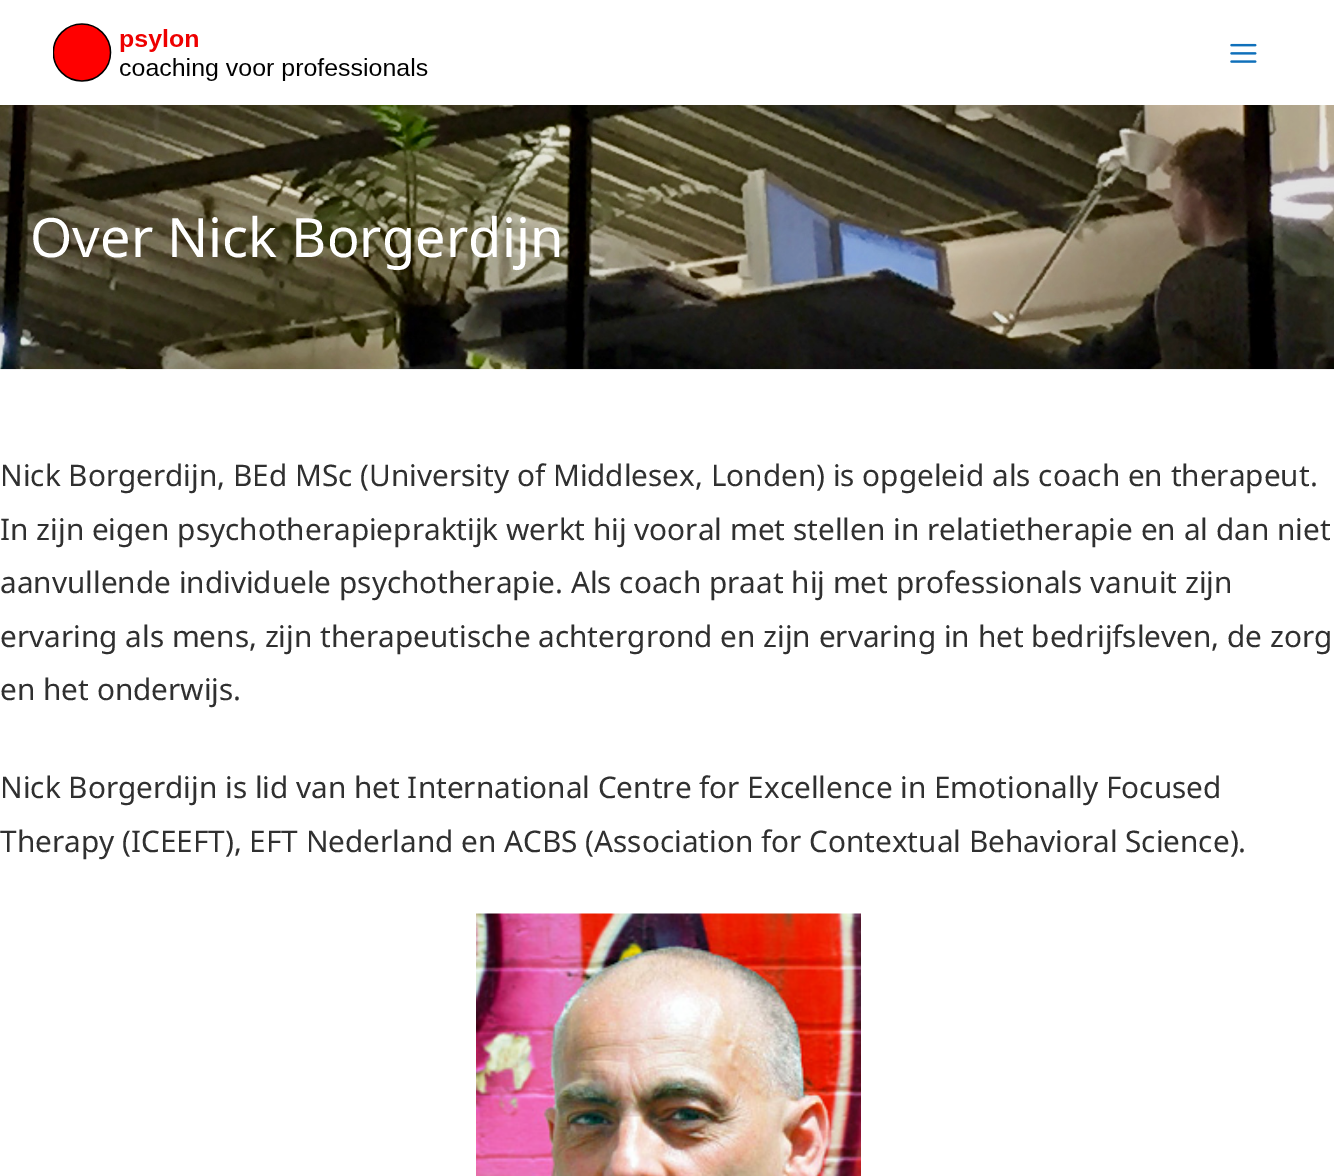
%!PS
<< /PageSize [1334 1176] >> setpagedevice
/picture { 5 dict begin { /h /w /y /x /name } { exch def } forall
  gsave x y translate w h scale
  w h 8 [w 0 0 h 0 0] name (r) file false 3 colorimage grestore end } def
0 1176 translate 1 -1 scale
4 setmiterlimit
1 setgray
0 0 1334 1176 rectfill
(img1.rgb) 53 23 375 59 picture
(img2.rgb) 1230 43 27 20 picture
(img3.rgb) 0 105 1334 265 picture
/NotoSans-Regular [54.25 0 0 -54.25 0 0] selectfont
30 257 moveto (Over Nick Borgerdijn) show
/NotoSans-Regular [29.75 0 0 -29.75 0 0] selectfont
0.188 setgray
0 486 moveto (Nick Borgerdijn, BEd MSc \(University of Middlesex, Londen\) is opgeleid als coach en therapeut.) show
0 540 moveto (In zijn eigen psychotherapiepraktijk werkt hij vooral met stellen in relatietherapie en al dan niet) show
0 593 moveto (aanvullende individuele psychotherapie. Als coach praat hij met professionals vanuit zijn) show
0 647 moveto (ervaring als mens, zijn therapeutische achtergrond en zijn ervaring in het bedrijfsleven, de zorg) show
0 700 moveto (en het onderwijs.) show
0 798 moveto (Nick Borgerdijn is lid van het International Centre for Excellence in Emotionally Focused) show
0 852 moveto (Therapy \(ICEEFT\), EFT Nederland en ACBS \(Association for Contextual Behavioral Science\).) show
(img4.rgb) 476 913 385 263 picture
showpage
